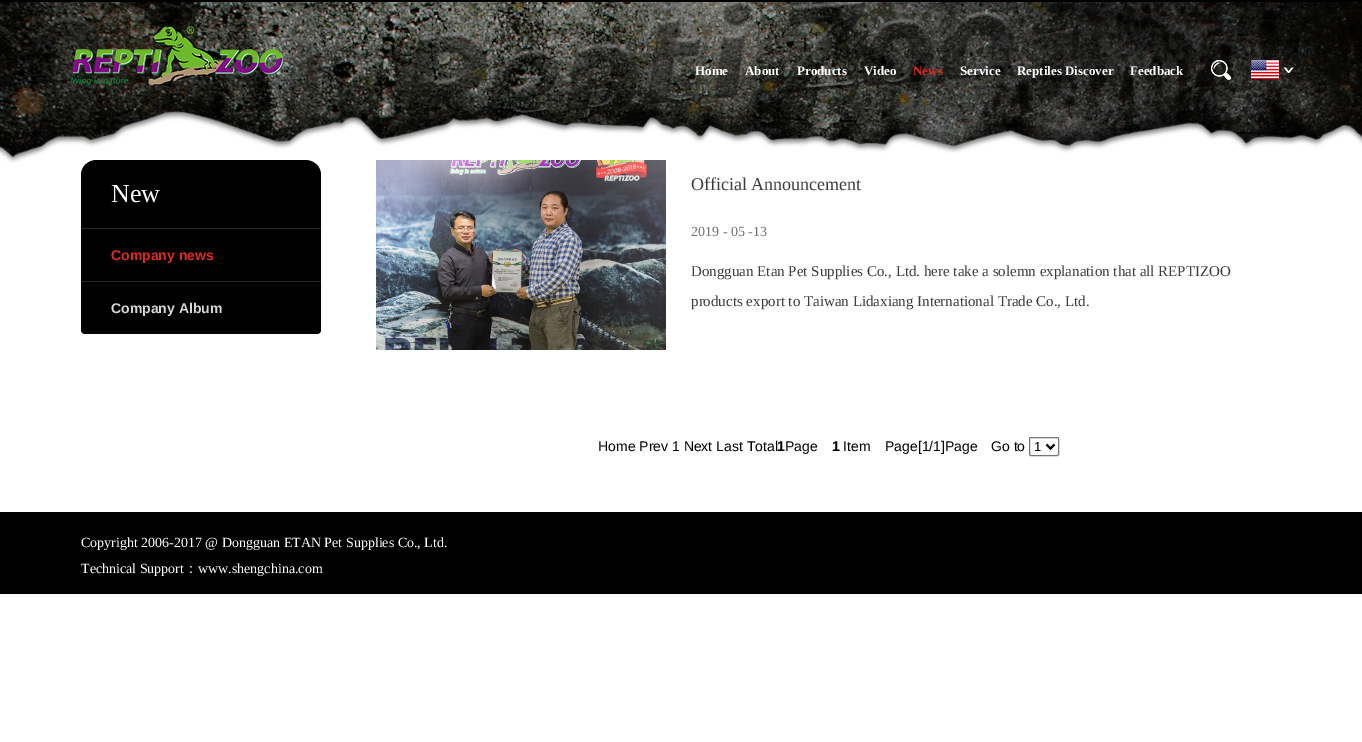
%!PS
<< /PageSize [1362 742] >> setpagedevice
/roundrect { 5 dict begin { /r /h /w /y /x } { exch def } forall
  x r add y moveto x w add y 2 copy h add r arct x w add y h add x 1 index r arct
  x y h add x y r arct x y 2 copy exch w add exch r arct closepath end } def
/picture { 5 dict begin { /h /w /y /x /name } { exch def } forall
  gsave x y translate w h scale
  w h 8 [w 0 0 h 0 0] name (r) file false 3 colorimage grestore end } def
0 742 translate 1 -1 scale
4 setmiterlimit
1 setgray
0 0 1362 742 rectfill
0 setgray
0 0 1362 2 rectfill
81 160 240 174 15 roundrect fill
(img6.rgb) 376 160 290 190 picture
(img1.rgb) 0 2 1362 162 picture
(img2.rgb) 70 25 214 61 picture
/LiberationSerif-Bold [13 0 0 -13 0 0] selectfont
1 setgray
695 75 moveto (Home) show
745 75 moveto (About) show
797 75 moveto (Products) show
864 75 moveto (Video) show
0.878 0.169 0.125 setrgbcolor
913 75 moveto (News) show
1 setgray
960 75 moveto (Service) show
1017 75 moveto (Reptiles Discover) show
1130 75 moveto (Feedback) show
(img3.rgb) 1211 60 20 20 picture
(img4.rgb) 1283 67 11 6 picture
(img5.rgb) 1251 60 28 19 picture
0.153 setgray
81 228 240 1 rectfill
/LiberationSerif-Regular [26 0 0 -26 0 0] selectfont
1 setgray
111 202 moveto (New) show
0 setgray
81 229 240 105 4 roundrect fill
0.153 setgray
81 281 240 1 rectfill
/LiberationSans-Bold [14 0 0 -14 0 0] selectfont
0.878 0.169 0.125 setrgbcolor
111 260 moveto (Company news) show
0.843 setgray
111 313 moveto (Company Album) show
/LiberationSerif-Regular [18 0 0 -18 0 0] selectfont
0.235 setgray
691 190 moveto (Official Announcement) show
/LiberationSerif-Regular [14 0 0 -14 0 0] selectfont
0.443 setgray
691 236 moveto (2019 - 05 -13) show
/LiberationSerif-Regular [15 0 0 -15 0 0] selectfont
0.235 setgray
691 276 moveto (Dongguan Etan Pet Supplies Co., Ltd. here take a solemn explanation that all REPTIZOO) show
691 306 moveto (products export to Taiwan Lidaxiang International Trade Co., Ltd.) show
/LiberationSans-Regular [14 0 0 -14 0 0] selectfont
0 setgray
598 451 moveto (Home Prev 1 Next Last Total) show
/LiberationSans-Bold [14 0 0 -14 0 0] selectfont
777 451 moveto (1) show
/LiberationSans-Regular [14 0 0 -14 0 0] selectfont
785 451 moveto (Page) show
/LiberationSans-Bold [14 0 0 -14 0 0] selectfont
832 451 moveto (1) show
/LiberationSans-Regular [14 0 0 -14 0 0] selectfont
843 451 moveto (Item) show
885 451 moveto (Page[1/1]Page) show
991 451 moveto (Go to) show
0.463 setgray
1029.5 437.5 29 18 1.5 roundrect stroke
0 setgray
2 setlinewidth
newpath 1046.5 444.5 moveto 1050.5 448.5 lineto 1054.5 444.5 lineto stroke
/LiberationSans-Regular [13 0 0 -13 0 0] selectfont
1034 451 moveto (1) show
0 512 1362 82 rectfill
/LiberationSerif-Regular [14 0 0 -14 0 0] selectfont
1 setgray
81 547 moveto (Copyright 2006-2017 @ Dongguan ETAN Pet Supplies Co., Ltd.) show
81 573 moveto (Technical Support) show
/WenQuanYiZenHei-Medium [14 0 0 -14 0 0] selectfont
184 573 moveto (：) show
/LiberationSerif-Regular [14 0 0 -14 0 0] selectfont
198 573 moveto (www.shengchina.com) show
showpage
